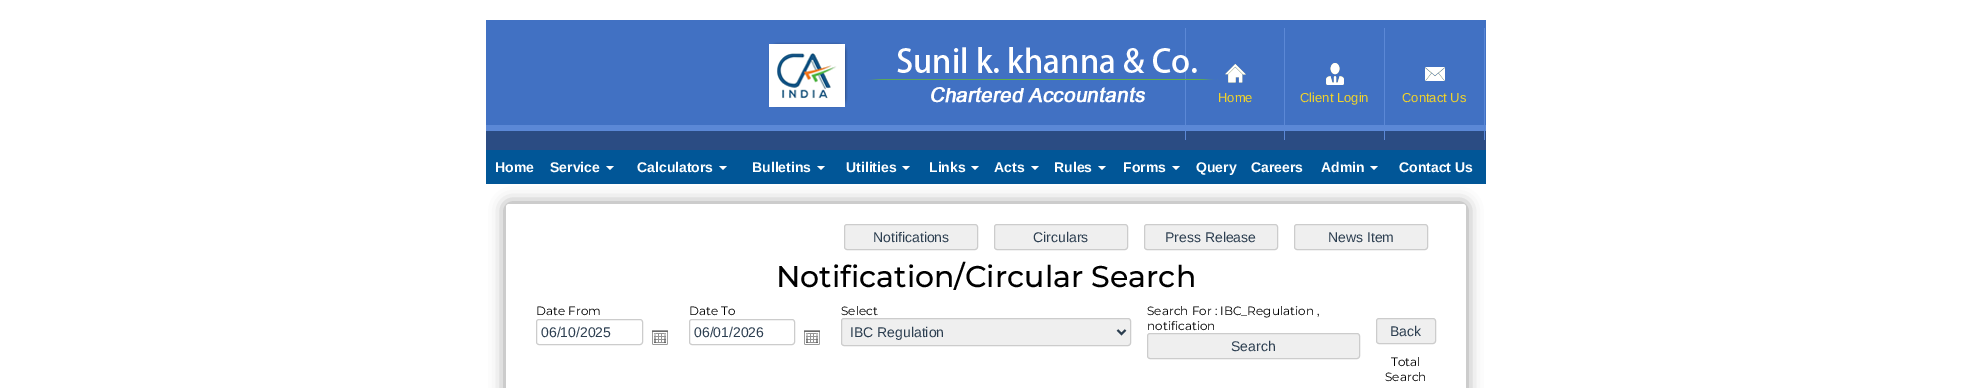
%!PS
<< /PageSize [1972 388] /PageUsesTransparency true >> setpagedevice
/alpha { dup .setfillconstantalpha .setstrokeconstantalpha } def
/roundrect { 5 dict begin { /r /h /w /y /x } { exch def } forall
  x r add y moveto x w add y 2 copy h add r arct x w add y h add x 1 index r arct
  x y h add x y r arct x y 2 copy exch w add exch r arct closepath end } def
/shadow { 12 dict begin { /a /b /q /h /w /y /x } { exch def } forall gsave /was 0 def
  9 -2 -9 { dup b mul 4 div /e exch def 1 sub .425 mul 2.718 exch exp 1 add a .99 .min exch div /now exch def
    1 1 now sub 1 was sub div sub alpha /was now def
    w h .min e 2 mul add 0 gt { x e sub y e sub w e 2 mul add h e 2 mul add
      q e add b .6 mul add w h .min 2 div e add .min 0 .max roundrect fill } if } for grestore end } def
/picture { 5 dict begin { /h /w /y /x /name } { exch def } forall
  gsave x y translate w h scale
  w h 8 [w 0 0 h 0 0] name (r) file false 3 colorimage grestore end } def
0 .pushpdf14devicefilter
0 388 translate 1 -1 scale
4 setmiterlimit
1 setgray
0 0 1972 388 rectfill
0.255 0.443 0.765 setrgbcolor
486 20 1000 105 rectfill
0.357 0.533 0.839 setrgbcolor
486 125 1000 6 rectfill
0.169 0.298 0.514 setrgbcolor
486 131 1000 19 rectfill
0.357 0.533 0.839 setrgbcolor
1185 28 1 112 rectfill
(img1.rgb) 768 42 450 66 picture
1284 28 1 112 rectfill
(img2.rgb) 1225 64 21 19 picture
/LiberationSans-Regular [13 0 0 -13 0 0] selectfont
0.941 0.824 0.169 setrgbcolor
1218 102 moveto (Home) show
0.357 0.533 0.839 setrgbcolor
1384 28 1 112 rectfill
(img3.rgb) 1326 63 18 22 picture
0.941 0.824 0.169 setrgbcolor
1300 102 moveto (Client Login) show
0.357 0.533 0.839 setrgbcolor
1484 28 1 112 rectfill
(img4.rgb) 1425 67 20 14 picture
0.941 0.824 0.169 setrgbcolor
1402 102 moveto (Contact Us) show
0 setgray
505 203 962 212 4 7.5 0.4 shadow
0.004 0.337 0.592 setrgbcolor
486 150 1000 34 rectfill
/LiberationSans-Bold [14 0 0 -14 0 0] selectfont
1 setgray
495 172 moveto (Home) show
550 172 moveto (Service) show
newpath 606 166 moveto 614 166 lineto 610 170 lineto closepath fill
637 172 moveto (Calculators) show
newpath 719 166 moveto 727 166 lineto 723 170 lineto closepath fill
752 172 moveto (Bulletins) show
newpath 817 166 moveto 825 166 lineto 821 170 lineto closepath fill
846 172 moveto (Utilities) show
newpath 902 166 moveto 910 166 lineto 906 170 lineto closepath fill
929 172 moveto (Links) show
newpath 971 166 moveto 979 166 lineto 975 170 lineto closepath fill
994 172 moveto (Acts) show
newpath 1031 166 moveto 1039 166 lineto 1035 170 lineto closepath fill
1054 172 moveto (Rules) show
newpath 1098 166 moveto 1106 166 lineto 1102 170 lineto closepath fill
1123 172 moveto (Forms) show
newpath 1172 166 moveto 1180 166 lineto 1176 170 lineto closepath fill
1196 172 moveto (Query) show
1251 172 moveto (Careers) show
1321 172 moveto (Admin) show
newpath 1370 166 moveto 1378 166 lineto 1374 170 lineto closepath fill
1399 172 moveto (Contact Us) show
506 204 960 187 3 roundrect fill
0.937 setgray
844.5 224.5 133 25 2.5 roundrect gsave fill grestore
0.8 setgray
stroke
/LiberationSans-Regular [14 0 0 -14 0 0] selectfont
0.173 0.243 0.314 setrgbcolor
873 242 moveto (Notifications) show
0.937 setgray
994.5 224.5 133 25 2.5 roundrect gsave fill grestore
0.8 setgray
stroke
0.173 0.243 0.314 setrgbcolor
1033 242 moveto (Circulars) show
0.937 setgray
1144.5 224.5 133 25 2.5 roundrect gsave fill grestore
0.8 setgray
stroke
0.173 0.243 0.314 setrgbcolor
1165 242 moveto (Press Release) show
0.937 setgray
1294.5 224.5 133 25 2.5 roundrect gsave fill grestore
0.8 setgray
stroke
0.173 0.243 0.314 setrgbcolor
1328 242 moveto (News Item) show
/Montserrat-Medium [30 0 0 -30 0 0] selectfont
0 setgray
776 287 moveto (Notification/Circular Search) show
/Montserrat-Regular [12 0 0 -12 0 0] selectfont
536 315 moveto (Date From) show
0.8 setgray
536.5 319.5 106 25 2.5 roundrect stroke
/LiberationSans-Regular [14 0 0 -14 0 0] selectfont
0.173 0.243 0.314 setrgbcolor
541 337 moveto (06/10/2025) show
(img5.rgb) 652 330 16 15 picture
/Montserrat-Regular [12 0 0 -12 0 0] selectfont
0 setgray
689 315 moveto (Date To) show
0.8 setgray
689.5 319.5 105 25 2.5 roundrect stroke
/LiberationSans-Regular [14 0 0 -14 0 0] selectfont
0.173 0.243 0.314 setrgbcolor
694 337 moveto (06/01/2026) show
(img5.rgb) 804 330 16 15 picture
/Montserrat-Regular [12 0 0 -12 0 0] selectfont
0 setgray
841 315 moveto (Select) show
0.937 setgray
841.5 318.5 289 27 2.5 roundrect gsave fill grestore
0.8 setgray
stroke
0.173 0.243 0.314 setrgbcolor
2 setlinewidth
newpath 1117.5 330 moveto 1121.5 334 lineto 1125.5 330 lineto stroke
/LiberationSans-Regular [14 0 0 -14 0 0] selectfont
850 337 moveto (IBC Regulation) show
/Montserrat-Regular [12 0 0 -12 0 0] selectfont
0 setgray
1147 315 moveto (Search For : IBC_Regulation ,) show
1147 330 moveto (notification) show
0.937 setgray
1147.5 333.5 212 25 2.5 roundrect gsave fill grestore
0.8 setgray
1 setlinewidth
stroke
/LiberationSans-Regular [14 0 0 -14 0 0] selectfont
0.173 0.243 0.314 setrgbcolor
1231 351 moveto (Search) show
0.937 setgray
1376.5 318.5 59 25 2.5 roundrect gsave fill grestore
0.8 setgray
stroke
0.173 0.243 0.314 setrgbcolor
1390 336 moveto (Back) show
/Montserrat-Regular [12 0 0 -12 0 0] selectfont
0 setgray
1391 366 moveto (Total) show
1385 381 moveto (Search) show
.poppdf14devicefilter showpage
